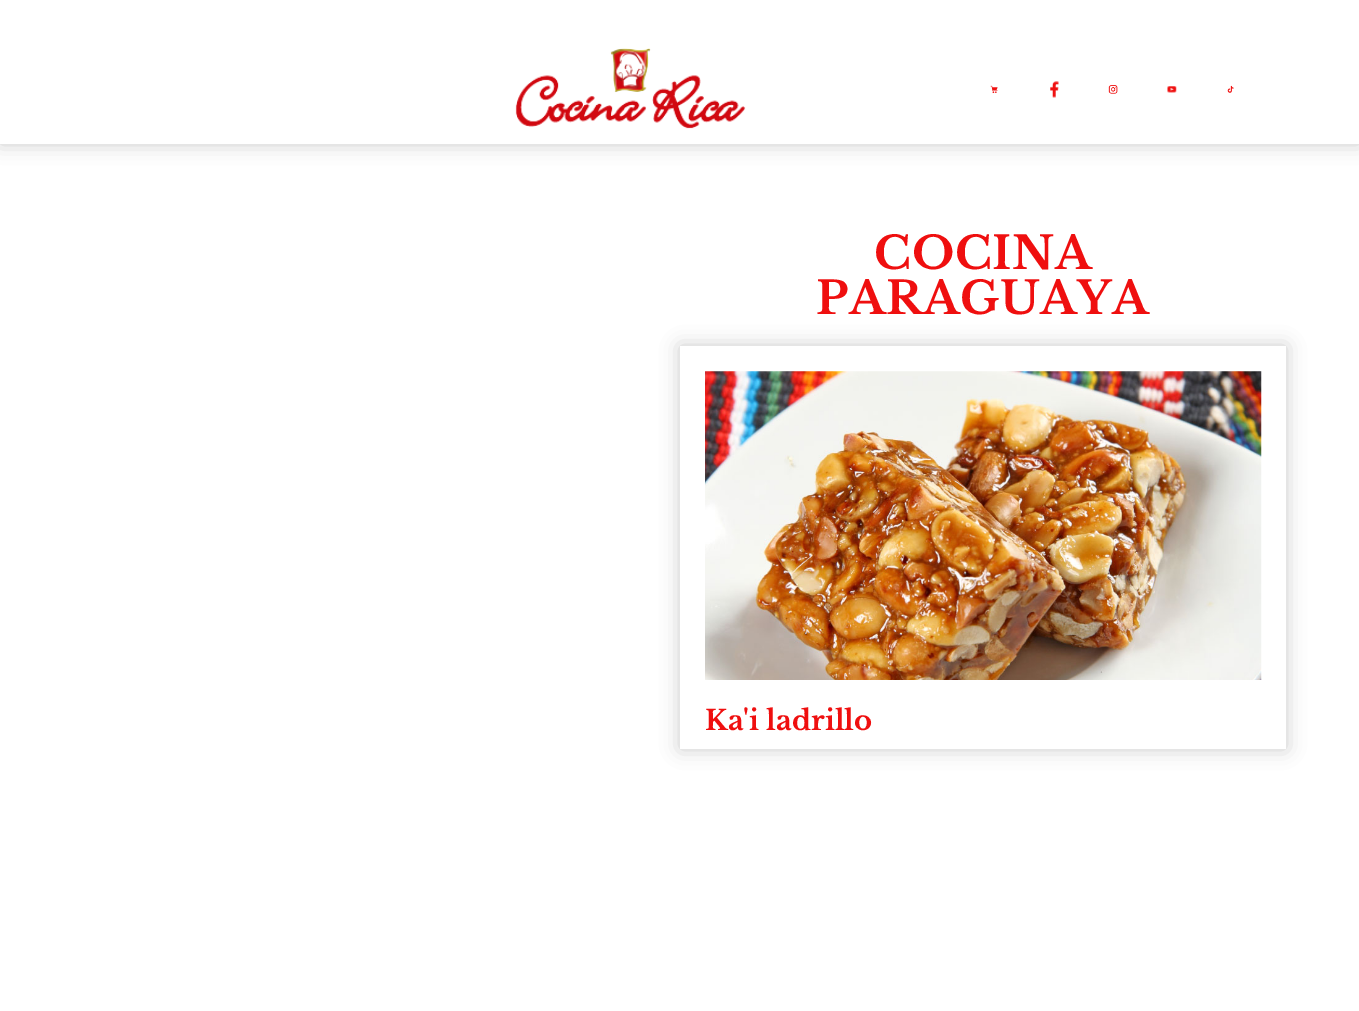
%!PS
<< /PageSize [1359 1011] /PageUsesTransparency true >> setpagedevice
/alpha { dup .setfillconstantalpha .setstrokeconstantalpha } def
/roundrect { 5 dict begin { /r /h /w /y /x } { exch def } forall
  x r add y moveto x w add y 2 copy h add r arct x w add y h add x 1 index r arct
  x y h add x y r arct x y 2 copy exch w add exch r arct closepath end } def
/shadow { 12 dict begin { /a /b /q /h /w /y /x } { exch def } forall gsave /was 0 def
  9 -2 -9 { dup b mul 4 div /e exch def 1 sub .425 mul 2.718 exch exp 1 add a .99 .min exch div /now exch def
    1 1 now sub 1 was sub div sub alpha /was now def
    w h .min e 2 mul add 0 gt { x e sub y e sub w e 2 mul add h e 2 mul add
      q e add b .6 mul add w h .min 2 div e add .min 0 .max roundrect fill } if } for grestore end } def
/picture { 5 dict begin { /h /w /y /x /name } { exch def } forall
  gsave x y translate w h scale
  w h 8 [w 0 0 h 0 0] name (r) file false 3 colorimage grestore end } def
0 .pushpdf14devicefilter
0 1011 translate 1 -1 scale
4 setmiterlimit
1 setgray
0 0 1359 1011 rectfill
gsave
newpath 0 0 moveto 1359 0 lineto 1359 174 lineto 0 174 lineto closepath 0 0 moveto 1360 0 lineto 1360 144 lineto 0 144 lineto closepath eoclip newpath
0 setgray
0 0 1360 144 0 9.5 0.2 shadow
grestore
(img1.rgb) 515 48 231 81 picture
(img2.rgb) 990 85 8 9 picture
(img3.rgb) 1050 81 9 17 picture
(img4.rgb) 1108 85 10 9 picture
(img5.rgb) 1167 86 10 7 picture
(img6.rgb) 1227 85 7 8 picture
/LibreBaskerville-Bold [45 0 0 -45 0 0] selectfont
0.937 0.059 0.059 setrgbcolor
874 269 moveto 0.6 0 (COCINA) ashow
816 314 moveto 0.6 0 (PARAGUAYA) ashow
gsave
newpath 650 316 moveto 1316 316 lineto 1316 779 lineto 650 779 lineto closepath 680 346 moveto 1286 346 lineto 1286 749 lineto 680 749 lineto closepath eoclip newpath
0 setgray
680 346 606 403 0 9.5 0.2 shadow
grestore
(img7.rgb) 705 371 557 309 picture
/LibreBaskerville-Bold [27.5 0 0 -27.5 0 0] selectfont
705 730 moveto (Ka'i ladrillo) show
.poppdf14devicefilter showpage
